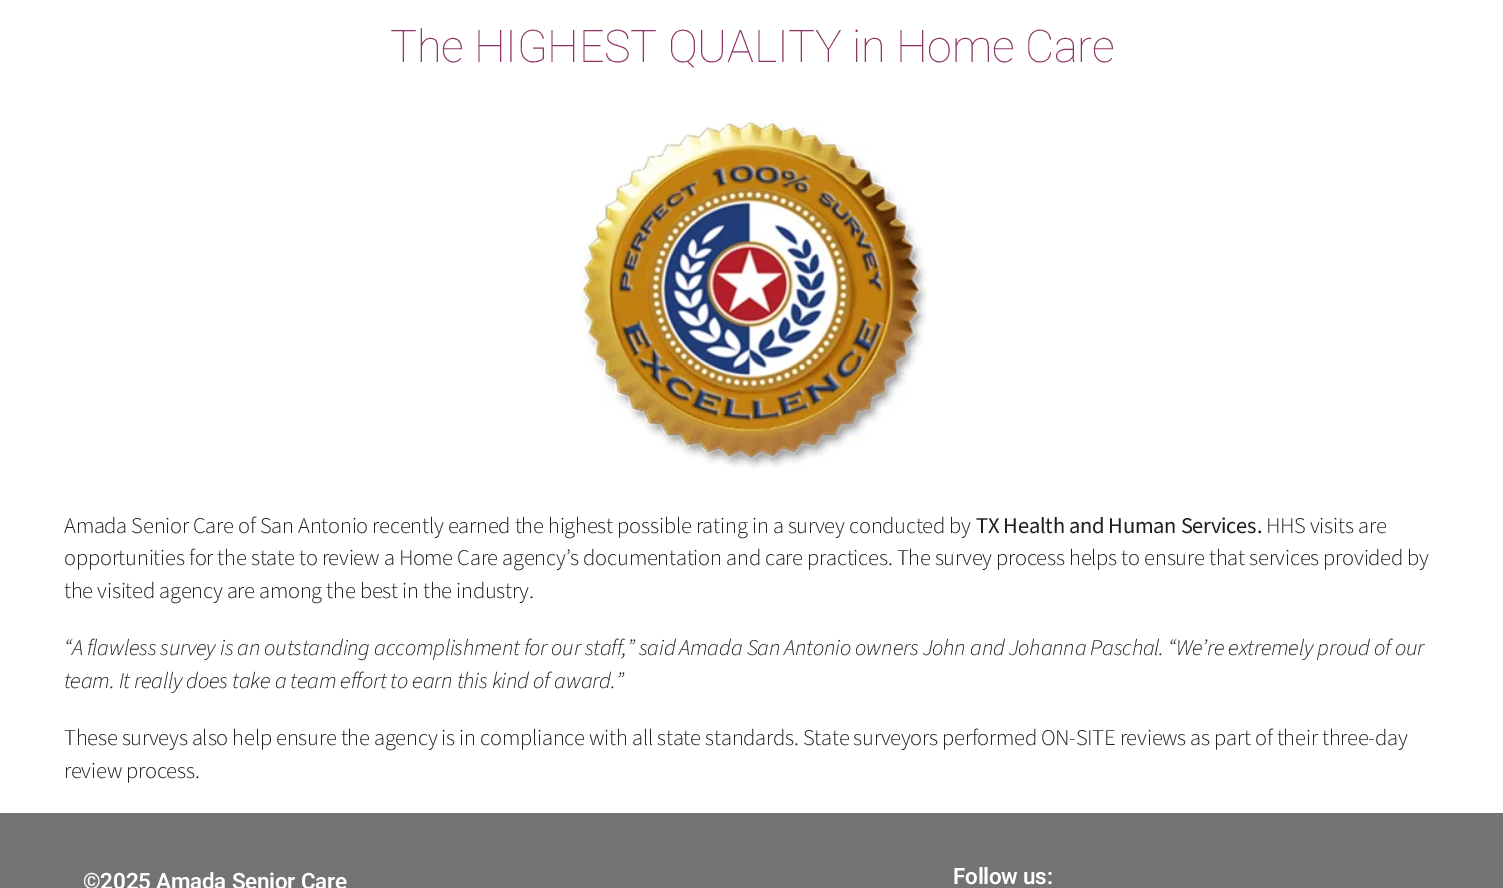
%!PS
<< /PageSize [1503 888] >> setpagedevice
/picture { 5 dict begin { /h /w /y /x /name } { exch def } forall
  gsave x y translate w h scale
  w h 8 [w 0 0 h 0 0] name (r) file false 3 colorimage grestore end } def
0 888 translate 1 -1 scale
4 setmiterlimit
1 setgray
0 0 1503 888 rectfill
/Roboto-Thin [45 0 0 -45 0 0] selectfont
0.553 0.2 0.4 setrgbcolor
390 62 moveto -0.25 0 (The HIGHEST QUALITY in Home Care) ashow
(img1.rgb) 580 120 347 350 picture
/SourceSans3-ExtraLight [22.5 0 0 -22.5 0 0] selectfont
0.125 setgray
64 533 moveto -0.25 0 (Amada Senior Care of San Antonio recently earned the highest possible rating in a survey conducted by) ashow
/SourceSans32-ExtraLight [22.5 0 0 -22.5 0 0] selectfont
976 533 moveto -0.25 0 (TX Health and Human Services.) ashow
/SourceSans3-ExtraLight [22.5 0 0 -22.5 0 0] selectfont
1266 533 moveto -0.25 0 (HHS visits are) ashow
64 565 moveto -0.25 0 (opportunities for the state to review a Home Care agency’s documentation and care practices. The survey process helps to ensure that services provided by) ashow
64 598 moveto -0.25 0 (the visited agency are among the best in the industry.) ashow
/SourceSans3-ExtraLightItalic [22.5 0 0 -22.5 0 0] selectfont
64 655 moveto -0.25 0 (“A flawless survey is an outstanding accomplishment for our staff,” said Amada San Antonio owners John and Johanna Paschal. “We’re extremely proud of our) ashow
64 688 moveto -0.25 0 (team. It really does take a team effort to earn this kind of award.”) ashow
/SourceSans3-ExtraLight [22.5 0 0 -22.5 0 0] selectfont
64 745 moveto -0.25 0 (These surveys also help ensure the agency is in compliance with all state standards. State surveyors performed ON-SITE reviews as part of their three-day) ashow
64 778 moveto -0.25 0 (review process.) ashow
0.451 setgray
0 813 1503 75 rectfill
/Roboto-SemiBold [22.5 0 0 -22.5 0 0] selectfont
1 setgray
83 889 moveto -0.25 0 (©2025 Amada Senior Care) ashow
953 884 moveto -0.25 0 (Follow us:) ashow
showpage
